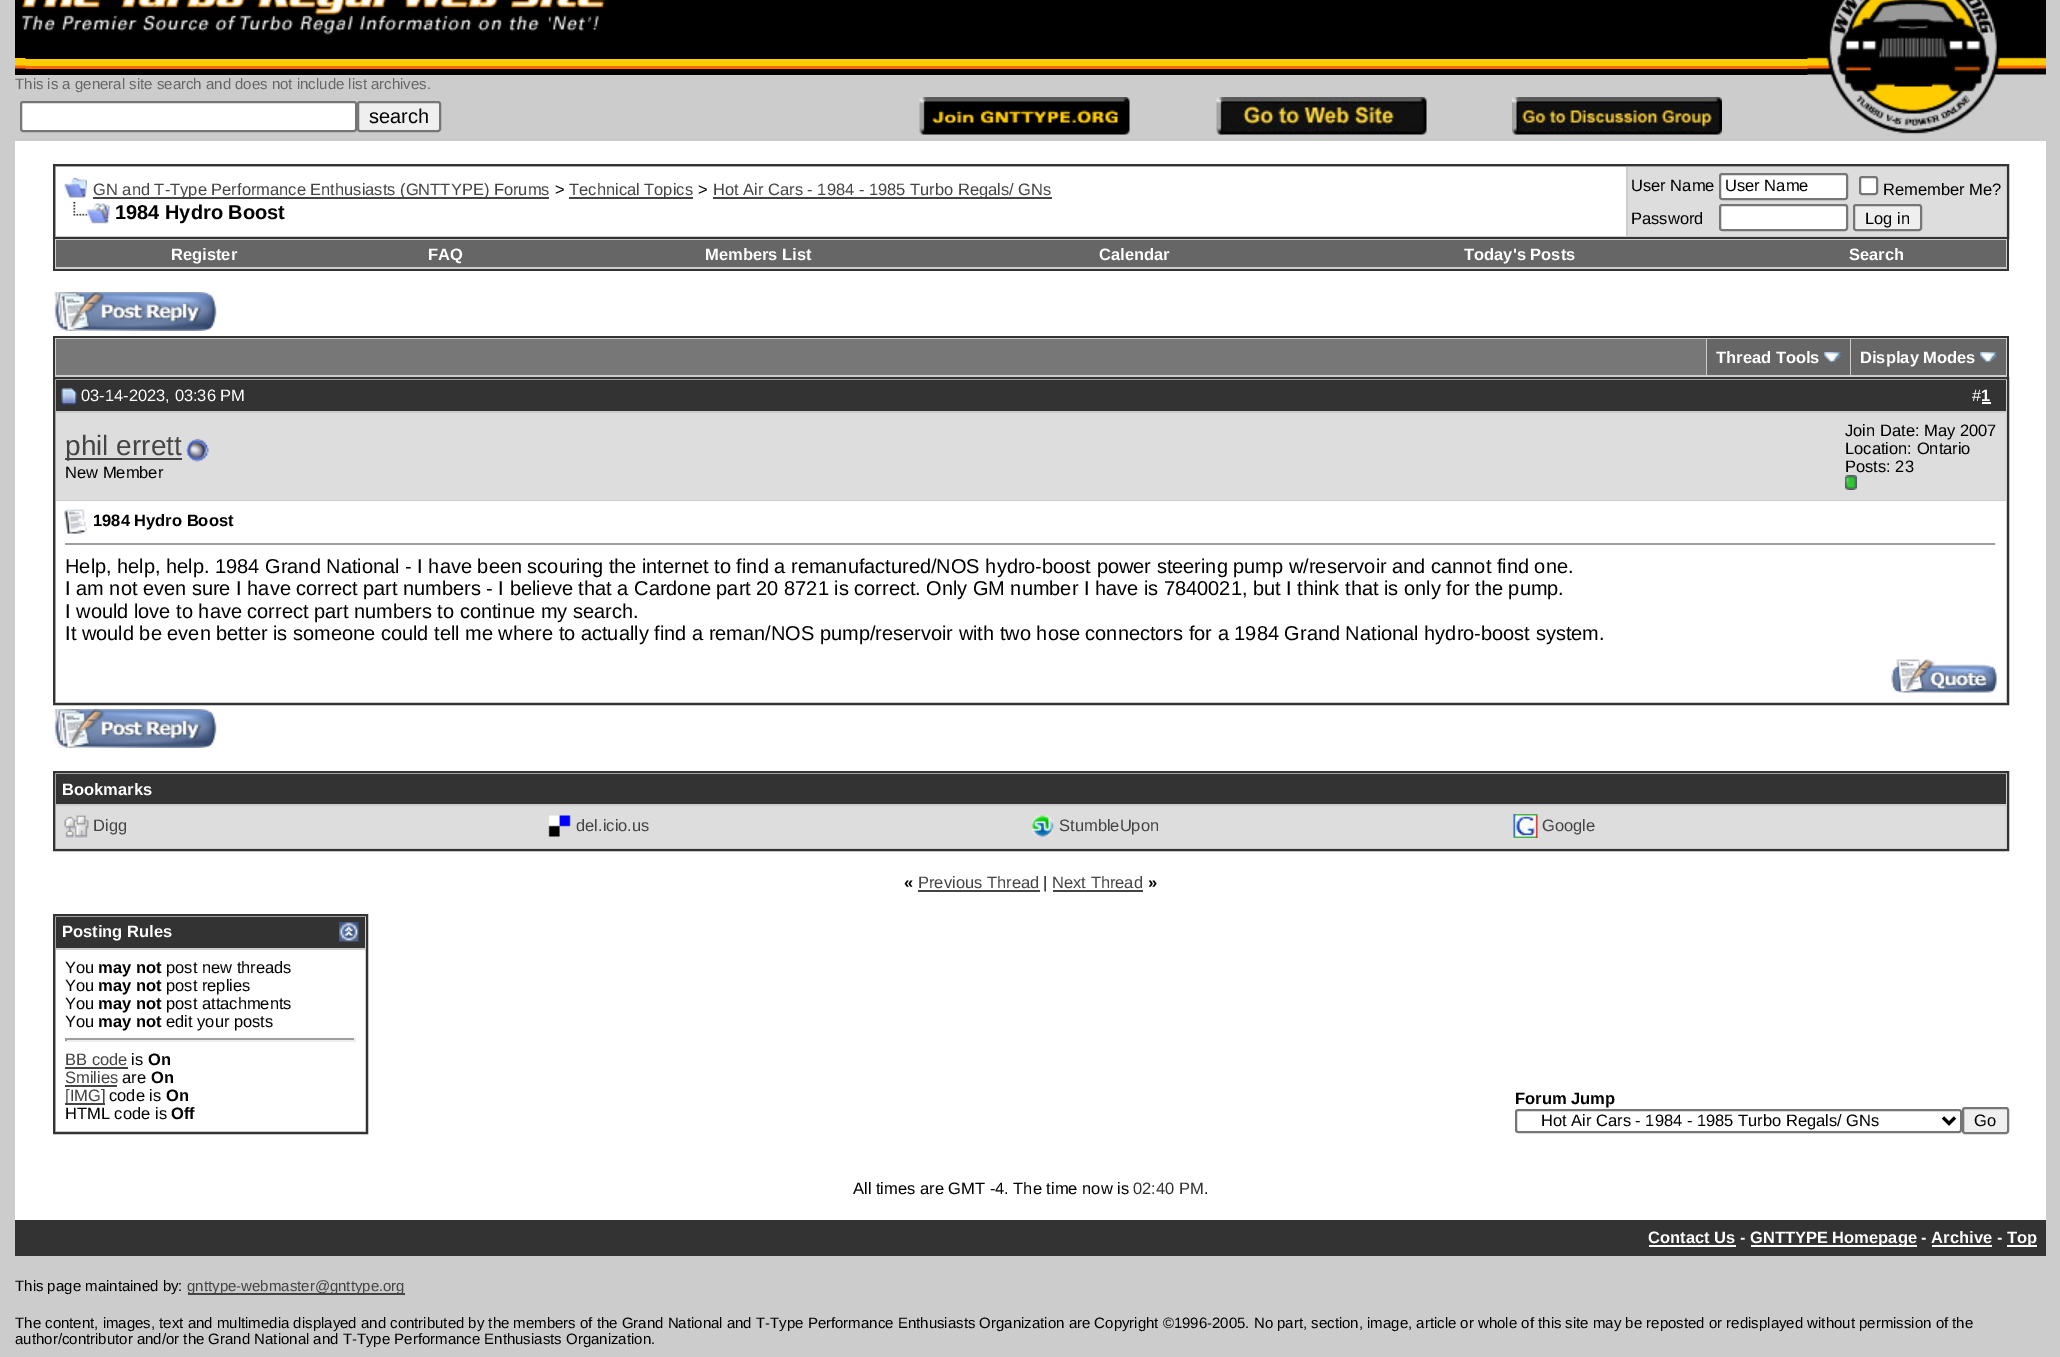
%!PS
<< /PageSize [2060 1357] >> setpagedevice
/roundrect { 5 dict begin { /r /h /w /y /x } { exch def } forall
  x r add y moveto x w add y 2 copy h add r arct x w add y h add x 1 index r arct
  x y h add x y r arct x y 2 copy exch w add exch r arct closepath end } def
/picture { 5 dict begin { /h /w /y /x /name } { exch def } forall
  gsave x y translate w h scale
  w h 8 [w 0 0 h 0 0] name (r) file false 3 colorimage grestore end } def
0 1357 translate 1 -1 scale
4 setmiterlimit
0.8 setgray
0 0 2060 1357 rectfill
0 setgray
15 0 1793 59 rectfill
(img1.rgb) 21 0 585 35 picture
1 0.8 0 setrgbcolor
15 59 1793 7 rectfill
1 0.4 0 setrgbcolor
15 66 1793 3 rectfill
0 setgray
15 69 1793 6 rectfill
(img2.rgb) 1807 0 239 134 picture
(img3.rgb) 15 58 11 1 picture
(img4.rgb) 15 65 11 1 picture
(img5.rgb) 15 68 11 1 picture
/LiberationSans-Regular [15 0 0 -15 0 0] selectfont
0.4 setgray
15 89 moveto (This is a general site search and does not include list archives.) show
1 setgray
21 102 335 29 2 roundrect gsave fill grestore
0.463 setgray
2 setlinewidth
stroke
0.937 setgray
358 102 82 29 2 roundrect gsave fill grestore
0.463 setgray
stroke
/LiberationSans-Regular [20 0 0 -20 0 0] selectfont
0 setgray
369 123 moveto (search) show
(img6.rgb) 919 97 211 38 picture
(img7.rgb) 1216 97 211 38 picture
(img8.rgb) 1512 97 210 38 picture
1 setgray
15 141 2031 1079 rectfill
0.8 setgray
newpath 54 165 moveto 2008 165 lineto 2008 238 lineto 54 238 lineto closepath gsave fill grestore
0.2 setgray
stroke
1 setgray
56 167 1570 69 rectfill
(img9.rgb) 64 177 23 21 picture
0.267 setgray
93 197 456 2 rectfill
/LiberationSans-Regular [16.5 0 0 -16.5 0 0] selectfont
93 195 moveto (GN and T-Type Performance Enthusiasts \(GNTTYPE\) Forums) show
0 setgray
555 195 moveto (>) show
0.267 setgray
569 197 124 2 rectfill
569 195 moveto (Technical Topics) show
0 setgray
698 195 moveto (>) show
0.267 setgray
713 197 339 2 rectfill
713 195 moveto (Hot Air Cars - 1984 - 1985 Turbo Regals/ GNs) show
(img10.rgb) 73 202 37 22 picture
/LiberationSans-Bold [20 0 0 -20 0 0] selectfont
0 setgray
115 219 moveto (1984 Hydro Boost) show
0.867 setgray
1628 167 378 69 rectfill
/LiberationSans-Regular [16.5 0 0 -16.5 0 0] selectfont
0 setgray
1631 191 moveto (User Name) show
1 setgray
1720 174 127 25 2 roundrect gsave fill grestore
0.463 setgray
stroke
0 setgray
1725 191 moveto (User Name) show
1 setgray
1860 177 17 17 2 roundrect gsave fill grestore
0.463 setgray
stroke
0 setgray
1883 195 moveto (Remember Me?) show
1631 224 moveto (Password) show
1 setgray
1720 205 127 25 2 roundrect gsave fill grestore
0.463 setgray
stroke
0.937 setgray
1854 205 67 25 2 roundrect gsave fill grestore
0.463 setgray
stroke
0 setgray
1865 224 moveto (Log in) show
0.8 setgray
55 239 1952 30 rectfill
0.2 setgray
2007 239 2 31 rectfill
53 269 1956 2 rectfill
53 239 2 31 rectfill
0.4 setgray
56 240 1950 27 rectfill
/LiberationSans-Bold [16.5 0 0 -16.5 0 0] selectfont
1 setgray
171 260 moveto (Register) show
428 260 moveto (FAQ) show
705 260 moveto (Members List) show
1099 260 moveto (Calendar) show
1464 260 moveto (Today's Posts) show
1849 260 moveto (Search) show
(img11.rgb) 54 292 163 39 picture
0.8 setgray
55 338 1952 39 rectfill
0.2 setgray
53 336 1956 2 rectfill
2007 336 2 41 rectfill
53 336 2 41 rectfill
0.467 setgray
56 339 1650 36 rectfill
0.4 setgray
1707 339 143 36 rectfill
1 setgray
1716 363 moveto (Thread Tools) show
(img12.rgb) 1824 352 17 11 picture
0.4 setgray
1851 339 155 36 rectfill
1 setgray
1860 363 moveto (Display Modes) show
(img12.rgb) 1980 352 17 11 picture
0.8 setgray
newpath 54 378 moveto 2008 378 lineto 2008 704 lineto 54 704 lineto closepath gsave fill grestore
0.2 setgray
stroke
56 380 1950 31 rectfill
(img13.rgb) 61 388 16 17 picture
/LiberationSans-Regular [16.5 0 0 -16.5 0 0] selectfont
1 setgray
81 401 moveto (03-14-2023, 03:36 PM) show
1972 401 moveto (#) show
/LiberationSans-Bold [16.5 0 0 -16.5 0 0] selectfont
1981 401 moveto (1) show
1982 402 9 2 rectfill
0.867 setgray
56 413 1950 87 rectfill
0.267 setgray
65 458 117 2 rectfill
/LiberationSans-Regular [28 0 0 -28 0 0] selectfont
65 455 moveto (phil errett) show
(img14.rgb) 186 439 23 23 picture
/LiberationSans-Regular [16.5 0 0 -16.5 0 0] selectfont
0 setgray
65 478 moveto (New Member) show
1845 436 moveto (Join Date: May 2007) show
1845 454 moveto (Location: Ontario) show
1845 472 moveto (Posts: 23) show
(img15.rgb) 1845 475 12 15 picture
1 setgray
56 501 1950 201 rectfill
(img16.rgb) 64 509 24 25 picture
/LiberationSans-Bold [16.5 0 0 -16.5 0 0] selectfont
0 setgray
93 526 moveto (1984 Hydro Boost) show
0.624 setgray
65 543 1932 2 rectfill
0.933 setgray
1995 543 2 2 rectfill
/LiberationSans-Regular [20 0 0 -20 0 0] selectfont
0 setgray
65 573 moveto (Help, help, help. 1984 Grand National - I have been scouring the internet to find a remanufactured/NOS hydro-boost power steering pump w/reservoir and cannot find one.) show
65 595 moveto (I am not even sure I have correct part numbers - I believe that a Cardone part 20 8721 is correct.) show
926 595 moveto (Only GM number I have is 7840021, but I think that is only for the pump.) show
65 618 moveto (I would love to have correct part numbers to continue my search.) show
65 640 moveto (It would be even better is someone could tell me where to actually find a reman/NOS pump/reservoir with two hose connectors for a 1984 Grand National hydro-boost system.) show
(img17.rgb) 1891 659 106 34 picture
(img11.rgb) 54 709 163 39 picture
0.8 setgray
newpath 54 772 moveto 2008 772 lineto 2008 850 lineto 54 850 lineto closepath gsave fill grestore
0.2 setgray
stroke
56 774 1950 30 rectfill
/LiberationSans-Bold [16.5 0 0 -16.5 0 0] selectfont
1 setgray
62 795 moveto (Bookmarks) show
0.867 setgray
56 806 1950 42 rectfill
(img18.rgb) 64 815 25 23 picture
/LiberationSans-Regular [16.5 0 0 -16.5 0 0] selectfont
0.267 setgray
93 831 moveto (Digg) show
(img19.rgb) 548 815 23 22 picture
576 831 moveto (del.icio.us) show
(img20.rgb) 1031 815 23 22 picture
1059 831 moveto (StumbleUpon) show
(img21.rgb) 1513 814 25 24 picture
1542 831 moveto (Google) show
/LiberationSans-Bold [16.5 0 0 -16.5 0 0] selectfont
0 setgray
904 888 moveto («) show
/LiberationSans-Regular [16.5 0 0 -16.5 0 0] selectfont
0.267 setgray
918 888 moveto (Previous Thread) show
918 890 122 2 rectfill
0 setgray
1043 888 moveto (|) show
0.267 setgray
1052 888 moveto (Next Thread) show
1053 890 90 2 rectfill
/LiberationSans-Bold [16.5 0 0 -16.5 0 0] selectfont
0 setgray
1148 888 moveto (») show
0.8 setgray
newpath 54 915 moveto 367 915 lineto 367 1133 lineto 54 1133 lineto closepath gsave fill grestore
0.2 setgray
stroke
56 917 309 31 rectfill
1 setgray
62 937 moveto (Posting Rules) show
(img22.rgb) 339 922 20 20 picture
56 950 309 181 rectfill
/LiberationSans-Regular [16.5 0 0 -16.5 0 0] selectfont
0 setgray
65 973 moveto (You) show
/LiberationSans-Bold [16.5 0 0 -16.5 0 0] selectfont
98 973 moveto (may not) show
/LiberationSans-Regular [16.5 0 0 -16.5 0 0] selectfont
166 973 moveto (post new threads) show
65 991 moveto (You) show
/LiberationSans-Bold [16.5 0 0 -16.5 0 0] selectfont
98 991 moveto (may not) show
/LiberationSans-Regular [16.5 0 0 -16.5 0 0] selectfont
166 991 moveto (post replies) show
65 1009 moveto (You) show
/LiberationSans-Bold [16.5 0 0 -16.5 0 0] selectfont
98 1009 moveto (may not) show
/LiberationSans-Regular [16.5 0 0 -16.5 0 0] selectfont
166 1009 moveto (post attachments) show
65 1027 moveto (You) show
/LiberationSans-Bold [16.5 0 0 -16.5 0 0] selectfont
98 1027 moveto (may not) show
/LiberationSans-Regular [16.5 0 0 -16.5 0 0] selectfont
166 1027 moveto (edit your posts) show
0.624 setgray
65 1038 291 2 rectfill
0.933 setgray
354 1038 2 3 rectfill
65 1040 291 2 rectfill
0.624 setgray
65 1038 2 3 rectfill
0.267 setgray
65 1065 moveto (BB code) show
65 1067 63 2 rectfill
0 setgray
131 1065 moveto (is) show
/LiberationSans-Bold [16.5 0 0 -16.5 0 0] selectfont
148 1065 moveto (On) show
/LiberationSans-Regular [16.5 0 0 -16.5 0 0] selectfont
0.267 setgray
65 1083 moveto (Smilies) show
65 1085 52 2 rectfill
0 setgray
122 1083 moveto (are) show
/LiberationSans-Bold [16.5 0 0 -16.5 0 0] selectfont
151 1083 moveto (On) show
0.267 setgray
65 1103 40 2 rectfill
/LiberationSans-Regular [16.5 0 0 -16.5 0 0] selectfont
65 1101 moveto ([IMG]) show
0 setgray
109 1101 moveto (code is) show
/LiberationSans-Bold [16.5 0 0 -16.5 0 0] selectfont
166 1101 moveto (On) show
/LiberationSans-Regular [16.5 0 0 -16.5 0 0] selectfont
65 1119 moveto (HTML code is) show
/LiberationSans-Bold [16.5 0 0 -16.5 0 0] selectfont
171 1119 moveto (Off) show
1515 1104 moveto (Forum Jump) show
0.463 setgray
1516 1110 445 22 2 roundrect stroke
0 setgray
3 setlinewidth
newpath 1943 1117.5 moveto 1949 1123.5 lineto 1955 1117.5 lineto stroke
/LiberationSans-Regular [16.5 0 0 -16.5 0 0] selectfont
1541 1126 moveto (Hot Air Cars - 1984 - 1985 Turbo Regals/ GNs) show
0.937 setgray
1963 1108 45 25 2 roundrect gsave fill grestore
0.463 setgray
2 setlinewidth
stroke
0 setgray
1974 1126 moveto (Go) show
853 1194 moveto (All times are GMT -4. The time now is) show
0.2 setgray
1133 1194 moveto (02:40 PM) show
0 setgray
1204 1194 moveto (.) show
0.2 setgray
15 1220 2031 36 rectfill
/LiberationSans-Bold [16.5 0 0 -16.5 0 0] selectfont
1 setgray
1648 1243 moveto (Contact Us -) show
1649 1245 87 2 rectfill
1751 1245 166 2 rectfill
1750 1243 moveto (GNTTYPE Homepage - Archive -) show
1932 1245 60 2 rectfill
2007 1245 30 2 rectfill
2007 1243 moveto (Top) show
/LiberationSans-Regular [15 0 0 -15 0 0] selectfont
0 setgray
15 1291 moveto (This page maintained by:) show
0.267 setgray
188 1293 217 2 rectfill
187 1291 moveto (gnttype-webmaster@gnttype.org) show
0 setgray
15 1328 moveto (The content, images, text and multimedia displayed and contributed by the members of the Grand National and T-Type Performance Enthusiasts Organization are Copyright ©1996-2005. No part, section, image, article or whole of this site may be reposted or redisplayed without permission of the) show
15 1344 moveto (author/contributor and/or the Grand National and T-Type Performance Enthusiasts Organization.) show
showpage
